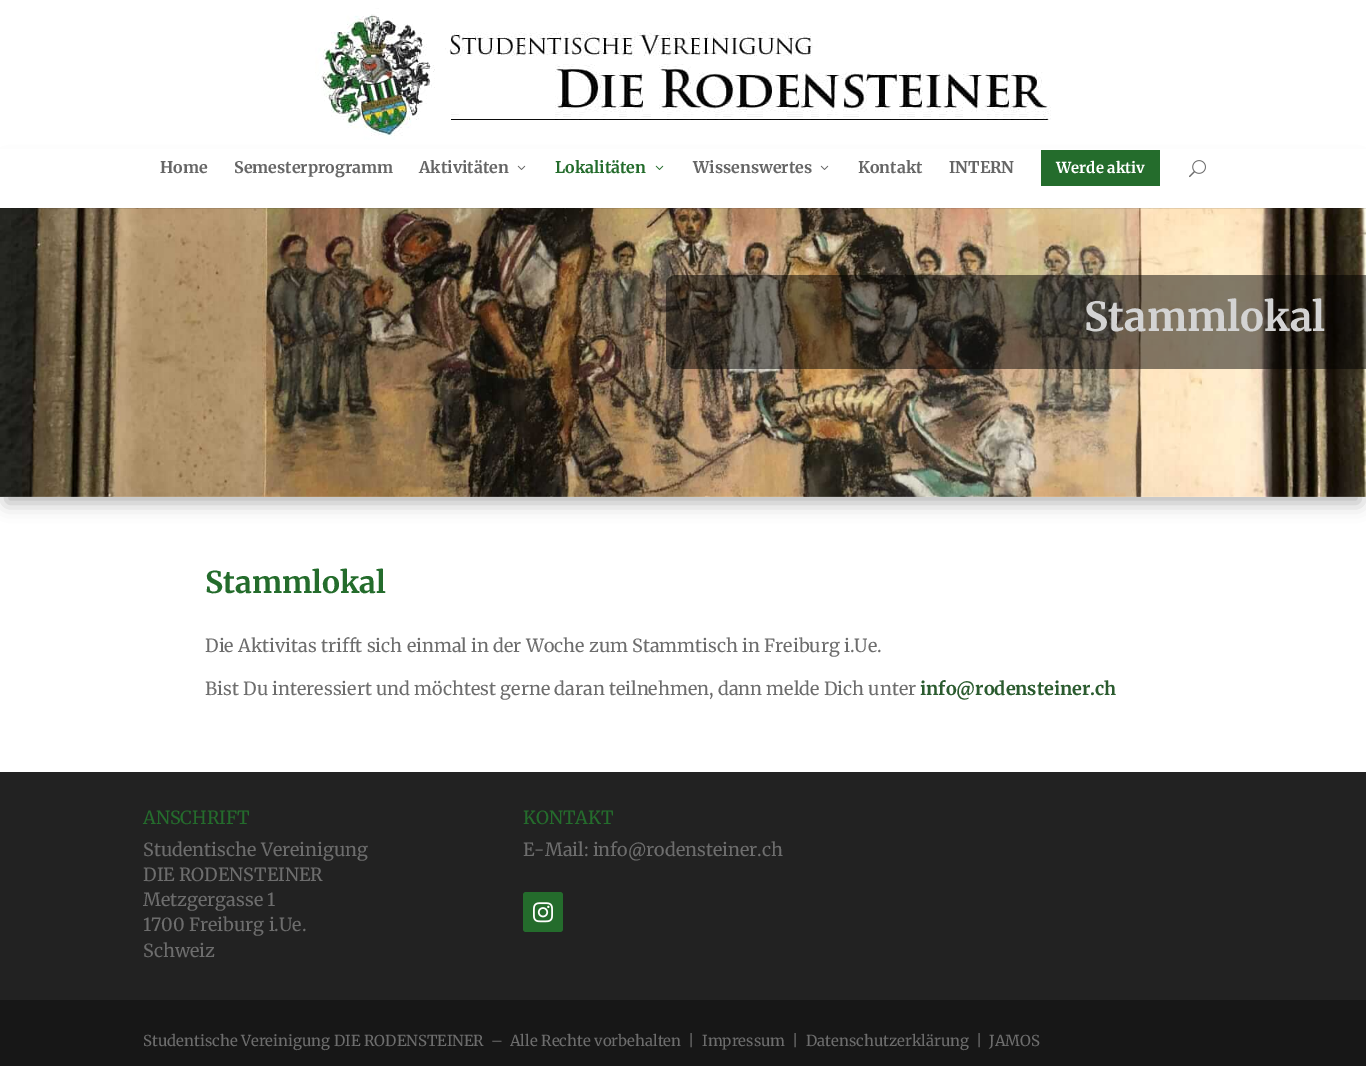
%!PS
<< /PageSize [1366 1066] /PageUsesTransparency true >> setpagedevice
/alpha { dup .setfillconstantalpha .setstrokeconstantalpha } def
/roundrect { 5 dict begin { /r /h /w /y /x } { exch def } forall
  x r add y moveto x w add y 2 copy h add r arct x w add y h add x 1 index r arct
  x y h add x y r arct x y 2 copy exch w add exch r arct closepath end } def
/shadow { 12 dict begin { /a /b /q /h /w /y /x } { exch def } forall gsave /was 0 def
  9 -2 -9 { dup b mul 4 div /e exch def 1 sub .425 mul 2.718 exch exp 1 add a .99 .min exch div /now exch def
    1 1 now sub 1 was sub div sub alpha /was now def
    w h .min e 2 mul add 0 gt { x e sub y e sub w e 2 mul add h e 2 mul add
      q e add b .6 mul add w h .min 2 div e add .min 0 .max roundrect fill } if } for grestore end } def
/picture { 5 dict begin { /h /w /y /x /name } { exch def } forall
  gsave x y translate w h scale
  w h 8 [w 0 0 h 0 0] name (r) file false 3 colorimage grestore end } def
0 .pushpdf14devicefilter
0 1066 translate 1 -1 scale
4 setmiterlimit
1 setgray
0 0 1366 1066 rectfill
0 setgray
6 165 1354 338 0 9 0.3 shadow
(img5.rgb) 0 208 1366 289 picture
0.1 alpha
0 208 1366 1 rectfill
1 alpha
1 setgray
0 149 1366 59 rectfill
(img1.rgb) 315 8 736 132 picture
/Merriweather-Bold [16 0 0 -16 0 0] selectfont
0.4 setgray
160 173 moveto (Home) show
234 173 moveto (Semesterprogramm) show
419 173 moveto (Aktivitäten) show
(img2.rgb) 517 165 9 5 picture
0.141 0.424 0.173 setrgbcolor
555 173 moveto (Lokalitäten) show
(img3.rgb) 655 165 9 5 picture
0.4 setgray
693 173 moveto (Wissenswertes) show
(img2.rgb) 820 165 9 5 picture
858 173 moveto (Kontakt) show
949 173 moveto (INTERN) show
0.141 0.424 0.173 setrgbcolor
1041 150 119 36 rectfill
/Merriweather-Bold [15 0 0 -15 0 0] selectfont
1 setgray
1056 173 moveto (Werde aktiv) show
(img4.rgb) 1189 160 17 18 picture
0.49 alpha
0 setgray
newpath 676 275 moveto 1366 275 lineto 1366 369 lineto 676 369 lineto 670.5 369 666 364.5 666 359 curveto 666 285 lineto 666 279.5 670.5 275 676 275 curveto closepath fill
/Merriweather-Bold [40 0 0 -40 0 0] selectfont
1 alpha
0.827 setgray
1084 331 moveto (Stammlokal) show
/Merriweather-Bold [30 0 0 -30 0 0] selectfont
0.141 0.424 0.173 setrgbcolor
205 593 moveto (Stammlokal) show
/Merriweather-Regular [18 0 0 -18 0 0] selectfont
0.427 setgray
205 652 moveto (Die Aktivitas trifft sich einmal in der Woche zum Stammtisch in Freiburg i.Ue.) show
205 695 moveto (Bist Du interessiert und möchtest gerne daran teilnehmen, dann melde Dich unter) show
/Merriweather-Bold [18 0 0 -18 0 0] selectfont
0.169 0.357 0.184 setrgbcolor
920 695 moveto (info@rodensteiner.ch) show
0.133 setgray
0 772 1366 228 rectfill
/Merriweather-Regular [18 0 0 -18 0 0] selectfont
0.141 0.424 0.173 setrgbcolor
143 824 moveto (ANSCHRIFT) show
0.427 setgray
143 856 moveto (Studentische Vereinigung) show
143 881 moveto (DIE RODENSTEINER) show
143 906 moveto (Metzgergasse 1) show
143 931 moveto (1700 Freiburg i.Ue.) show
143 957 moveto (Schweiz) show
0.141 0.424 0.173 setrgbcolor
523 824 moveto (KONTAKT) show
0.427 setgray
523 856 moveto (E-Mail: info@rodensteiner.ch) show
0.141 0.424 0.173 setrgbcolor
523 892 40 40 3 roundrect fill
(img6.rgb) 533 902 20 21 picture
0.09 setgray
0 1000 1366 66 rectfill
/Merriweather-Regular [15 0 0 -15 0 0] selectfont
0.427 setgray
143 1046 moveto (Studentische Vereinigung DIE RODENSTEINER  –  Alle Rechte vorbehalten  |) show
702 1046 moveto (Impressum) show
792 1046 moveto (|) show
806 1046 moveto (Datenschutzerklärung) show
976 1046 moveto (|) show
989 1046 moveto (JAMOS) show
.poppdf14devicefilter showpage
